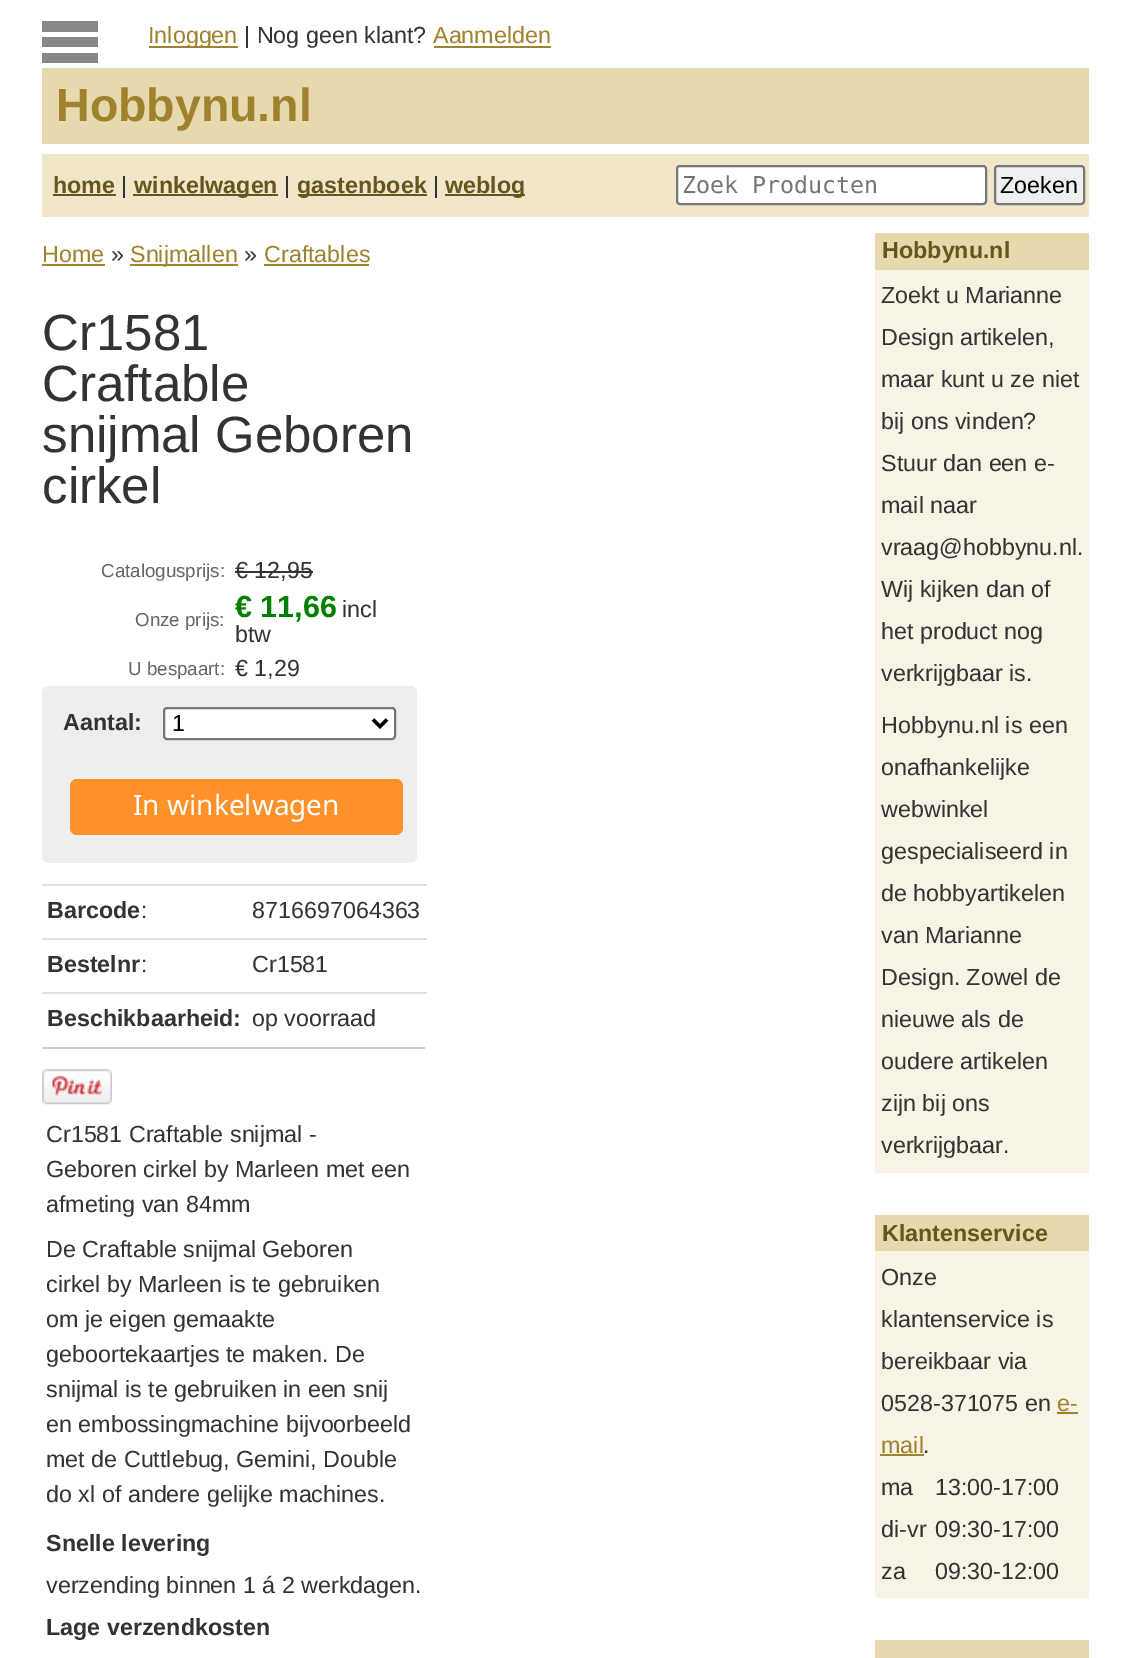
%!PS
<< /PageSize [1130 1658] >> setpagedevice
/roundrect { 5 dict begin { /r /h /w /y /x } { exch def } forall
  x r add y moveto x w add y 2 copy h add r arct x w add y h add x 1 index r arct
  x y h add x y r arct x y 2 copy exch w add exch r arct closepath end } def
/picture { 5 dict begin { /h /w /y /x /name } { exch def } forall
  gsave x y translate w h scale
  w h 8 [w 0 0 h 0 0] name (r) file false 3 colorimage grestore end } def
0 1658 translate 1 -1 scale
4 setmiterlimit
1 setgray
0 0 1130 1658 rectfill
0.533 setgray
42 21 56 11 rectfill
42 37 56 10 rectfill
42 53 56 10 rectfill
0.624 0.51 0.176 setrgbcolor
149 46 89 2 rectfill
/LiberationSans-Regular [23.3 0 0 -23.3 0 0] selectfont
148 43 moveto (Inloggen) show
0.2 setgray
244 43 moveto (| Nog geen klant?) show
0.624 0.51 0.176 setrgbcolor
433 43 moveto (Aanmelden) show
434 46 117 2 rectfill
0.906 0.851 0.682 setrgbcolor
42 68 1047 76 rectfill
/LiberationSans-Bold [46.5 0 0 -46.5 0 0] selectfont
0.624 0.51 0.176 setrgbcolor
56 121 moveto (Hobbynu.nl) show
0.945 0.902 0.788 setrgbcolor
42 154 1047 63 rectfill
/LiberationSans-Bold [23.3 0 0 -23.3 0 0] selectfont
0.4 0.337 0.118 setrgbcolor
53 193 moveto (home) show
53 194 63 2 rectfill
/LiberationSans-Regular [23.3 0 0 -23.3 0 0] selectfont
0.2 setgray
121 193 moveto (|) show
0.4 0.337 0.118 setrgbcolor
133 194 145 2 rectfill
/LiberationSans-Bold [23.3 0 0 -23.3 0 0] selectfont
134 193 moveto (winkelwagen) show
/LiberationSans-Regular [23.3 0 0 -23.3 0 0] selectfont
0.2 setgray
284 193 moveto (|) show
0.4 0.337 0.118 setrgbcolor
298 194 129 2 rectfill
/LiberationSans-Bold [23.3 0 0 -23.3 0 0] selectfont
297 193 moveto (gastenboek) show
/LiberationSans-Regular [23.3 0 0 -23.3 0 0] selectfont
0.2 setgray
433 193 moveto (|) show
0.4 0.337 0.118 setrgbcolor
445 194 80 2 rectfill
/LiberationSans-Bold [23.3 0 0 -23.3 0 0] selectfont
445 193 moveto (weblog) show
1 setgray
677 166 309 38 3 roundrect gsave fill grestore
0.463 setgray
2 setlinewidth
stroke
/DejaVuSansMono-Regular [23.3 0 0 -23.3 0 0] selectfont
0.459 setgray
682 193 moveto (Zoek Producten) show
0.937 setgray
995 166 89 38 3 roundrect gsave fill grestore
0.463 setgray
stroke
/LiberationSans-Regular [23.3 0 0 -23.3 0 0] selectfont
0 setgray
1000 193 moveto (Zoeken) show
0.624 0.51 0.176 setrgbcolor
42 262 moveto (Home) show
42 264 63 2 rectfill
0.2 setgray
111 262 moveto (») show
0.624 0.51 0.176 setrgbcolor
130 264 108 2 rectfill
130 262 moveto (Snijmallen) show
0.2 setgray
244 262 moveto (») show
0.624 0.51 0.176 setrgbcolor
264 262 moveto (Craftables) show
264 264 105 2 rectfill
/LiberationSans-Regular [51 0 0 -51 0 0] selectfont
0.2 setgray
42 350 moveto (Cr1581) show
42 401 moveto (Craftable) show
42 452 moveto (snijmal Geboren) show
42 503 moveto (cirkel) show
/LiberationSans-Regular [18.75 0 0 -18.75 0 0] selectfont
0.4 setgray
101 577 moveto (Catalogusprijs:) show
/LiberationSans-Regular [23.3 0 0 -23.3 0 0] selectfont
0.2 setgray
235 578 moveto (€ 12,95) show
235 571 78 2 rectfill
/LiberationSans-Regular [18.75 0 0 -18.75 0 0] selectfont
0.4 setgray
135 626 moveto (Onze prijs:) show
/LiberationSans-Bold [30.5 0 0 -30.5 0 0] selectfont
0 0.502 0 setrgbcolor
235 617 moveto (€ 11,66) show
/LiberationSans-Regular [23.3 0 0 -23.3 0 0] selectfont
0.2 setgray
342 617 moveto (incl) show
235 642 moveto (btw) show
/LiberationSans-Regular [18.75 0 0 -18.75 0 0] selectfont
0.4 setgray
128 675 moveto (U bespaart:) show
/LiberationSans-Regular [23.3 0 0 -23.3 0 0] selectfont
0.2 setgray
235 676 moveto (€ 1,29) show
0.933 setgray
42 686 375 177 7 roundrect fill
/LiberationSans-Bold [23.3 0 0 -23.3 0 0] selectfont
0.2 setgray
63 730 moveto (Aantal:) show
1 setgray
164 708 231 31 3 roundrect gsave fill grestore
0.463 setgray
stroke
0 setgray
3.5 setlinewidth
newpath 373 719.5 moveto 380 726.5 lineto 387 719.5 lineto stroke
/LiberationSans-Regular [23.3 0 0 -23.3 0 0] selectfont
172 731 moveto (1) show
1 0.569 0.165 setrgbcolor
70 779 333 56 7 roundrect fill
/NotoSans-Regular [28 0 0 -28 0 0] selectfont
1 setgray
133 815 moveto (In winkelwagen) show
0.8 setgray
42 1047 383 2 rectfill
/LiberationSans-Bold [23.3 0 0 -23.3 0 0] selectfont
0.2 setgray
47 918 moveto (Barcode) show
/LiberationSans-Regular [23.3 0 0 -23.3 0 0] selectfont
141 918 moveto (:) show
0.878 setgray
42 884 385 2 rectfill
0.2 setgray
252 918 moveto (8716697064363) show
/LiberationSans-Bold [23.3 0 0 -23.3 0 0] selectfont
47 972 moveto (Bestelnr) show
/LiberationSans-Regular [23.3 0 0 -23.3 0 0] selectfont
141 972 moveto (:) show
0.878 setgray
42 938 385 2 rectfill
0.2 setgray
252 972 moveto (Cr1581) show
/LiberationSans-Bold [23.3 0 0 -23.3 0 0] selectfont
47 1026 moveto (Beschikbaarheid:) show
0.878 setgray
42 992 385 2 rectfill
/LiberationSans-Regular [23.3 0 0 -23.3 0 0] selectfont
0.2 setgray
252 1026 moveto (op voorraad) show
(img1.rgb) 42 1069 70 36 picture
46 1142 moveto (Cr1581 Craftable snijmal -) show
46 1177 moveto (Geboren cirkel by Marleen met een) show
46 1212 moveto (afmeting van 84mm) show
46 1257 moveto (De Craftable snijmal Geboren) show
46 1292 moveto (cirkel by Marleen is te gebruiken) show
46 1327 moveto (om je eigen gemaakte) show
46 1362 moveto (geboortekaartjes te maken. De) show
46 1397 moveto (snijmal is te gebruiken in een snij) show
46 1432 moveto (en embossingmachine bijvoorbeeld) show
46 1467 moveto (met de Cuttlebug, Gemini, Double) show
46 1502 moveto (do xl of andere gelijke machines.) show
/LiberationSans-Bold [23.3 0 0 -23.3 0 0] selectfont
46 1551 moveto (Snelle levering) show
/LiberationSans-Regular [23.3 0 0 -23.3 0 0] selectfont
46 1593 moveto (verzending binnen 1 á 2 werkdagen.) show
/LiberationSans-Bold [23.3 0 0 -23.3 0 0] selectfont
46 1635 moveto (Lage verzendkosten) show
0.906 0.851 0.682 setrgbcolor
875 233 214 37 rectfill
0.4 0.337 0.118 setrgbcolor
882 258 moveto (Hobbynu.nl) show
0.973 0.957 0.898 setrgbcolor
875 270 214 903 rectfill
/LiberationSans-Regular [23.3 0 0 -23.3 0 0] selectfont
0.2 setgray
881 303 moveto (Zoekt u Marianne) show
881 345 moveto (Design artikelen,) show
881 387 moveto (maar kunt u ze niet) show
881 429 moveto (bij ons vinden?) show
881 471 moveto (Stuur dan een e-) show
881 513 moveto (mail naar) show
881 555 moveto (vraag@hobbynu.nl.) show
881 597 moveto (Wij kijken dan of) show
881 639 moveto (het product nog) show
881 681 moveto (verkrijgbaar is.) show
881 733 moveto (Hobbynu.nl is een) show
881 775 moveto (onafhankelijke) show
881 817 moveto (webwinkel) show
881 859 moveto (gespecialiseerd in) show
881 901 moveto (de hobbyartikelen) show
881 943 moveto (van Marianne) show
881 985 moveto (Design. Zowel de) show
881 1027 moveto (nieuwe als de) show
881 1069 moveto (oudere artikelen) show
881 1111 moveto (zijn bij ons) show
881 1153 moveto (verkrijgbaar.) show
0.906 0.851 0.682 setrgbcolor
875 1215 214 36 rectfill
/LiberationSans-Bold [23.3 0 0 -23.3 0 0] selectfont
0.4 0.337 0.118 setrgbcolor
882 1241 moveto (Klantenservice) show
0.973 0.957 0.898 setrgbcolor
875 1251 214 347 rectfill
/LiberationSans-Regular [23.3 0 0 -23.3 0 0] selectfont
0.2 setgray
881 1285 moveto (Onze) show
881 1327 moveto (klantenservice is) show
881 1369 moveto (bereikbaar via) show
881 1411 moveto (0528-371075 en) show
0.624 0.51 0.176 setrgbcolor
1057 1411 moveto (e-) show
1057 1412 21 2 rectfill
881 1453 moveto (mail) show
880 1454 44 2 rectfill
0.2 setgray
923 1453 moveto (.) show
881 1495 moveto (ma) show
935 1495 moveto (13:00-17:00) show
881 1537 moveto (di-vr) show
935 1537 moveto (09:30-17:00) show
881 1579 moveto (za) show
935 1579 moveto (09:30-12:00) show
0.906 0.851 0.682 setrgbcolor
875 1640 214 18 rectfill
showpage
